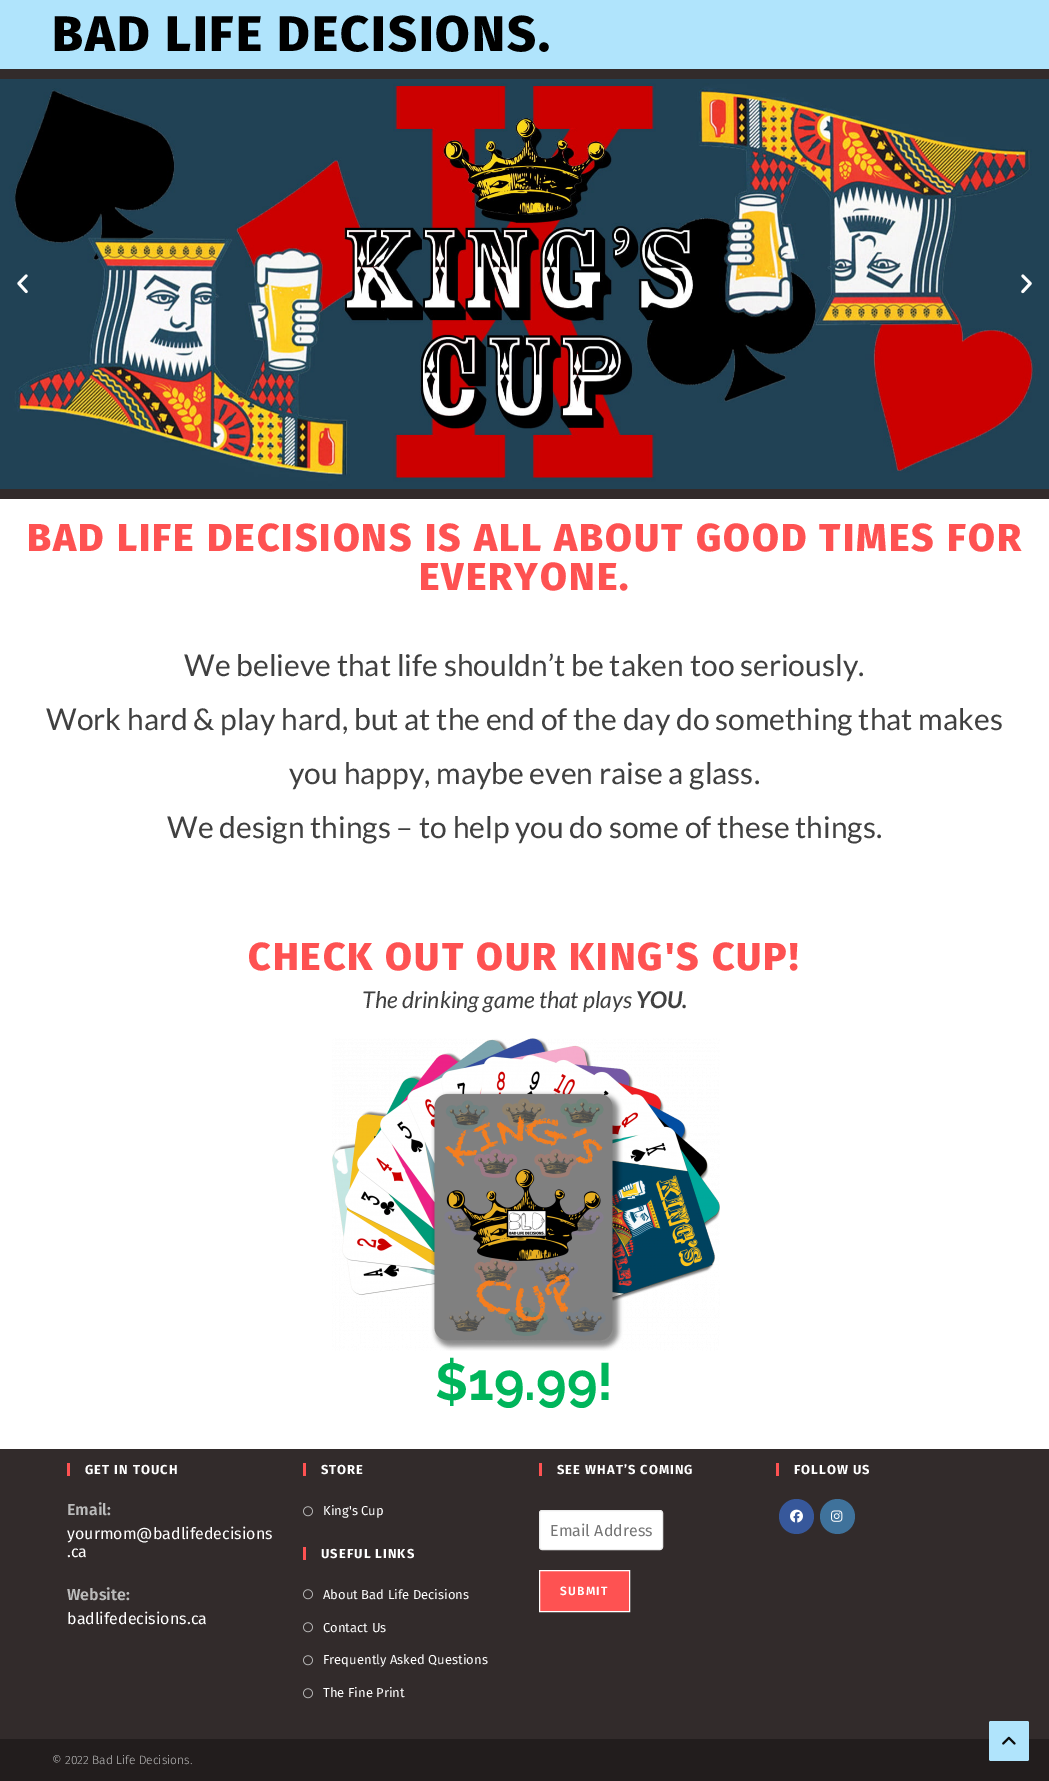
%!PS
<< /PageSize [1049 1781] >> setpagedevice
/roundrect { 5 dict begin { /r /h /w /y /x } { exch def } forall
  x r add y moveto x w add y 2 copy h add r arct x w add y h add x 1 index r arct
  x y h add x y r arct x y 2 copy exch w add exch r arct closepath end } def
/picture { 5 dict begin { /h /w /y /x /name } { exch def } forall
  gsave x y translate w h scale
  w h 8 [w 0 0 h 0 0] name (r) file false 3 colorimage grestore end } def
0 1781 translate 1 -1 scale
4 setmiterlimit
0.196 0.169 0.169 setrgbcolor
0 0 1049 1781 rectfill
1 setgray
0 499 1049 950 rectfill
0.69 0.894 0.988 setrgbcolor
0 0 1049 69 rectfill
/FiraSans-ExtraBold [50 0 0 -50 0 0] selectfont
0 setgray
52 51 moveto 2 0 (BAD LIFE DECISIONS.) ashow
(img1.rgb) 0 79 1049 410 picture
(img2.rgb) 17 274 11 20 picture
(img3.rgb) 1021 274 11 20 picture
/FiraSans-ExtraBold [39 0 0 -39 0 0] selectfont
0.996 0.322 0.322 setrgbcolor
27 551 moveto 2 0 (BAD LIFE DECISIONS IS ALL ABOUT GOOD TIMES FOR) ashow
419 590 moveto 2 0 (EVERYONE.) ashow
/Lato-Regular [30 0 0 -30 0 0] selectfont
0.251 setgray
184 676 moveto (We believe that life shouldn’t be taken too seriously.) show
46 730 moveto (Work hard & play hard, but at the end of the day do something that makes) show
289 784 moveto (you happy, maybe even raise a glass.) show
167 838 moveto (We design things – to help you do some of these things.) show
/FiraSans-ExtraBold [39 0 0 -39 0 0] selectfont
0.996 0.322 0.322 setrgbcolor
248 970 moveto 2 0 (CHECK OUT OUR KING'S CUP!) ashow
/Lato-Italic [23 0 0 -23 0 0] selectfont
0.251 setgray
362 1008 moveto (The drinking game that plays) show
/Lato-BoldItalic [23 0 0 -23 0 0] selectfont
636 1008 moveto (YOU.) show
(img4.rgb) 332 1038 388 313 picture
/Raleway-Bold [52 0 0 -52 0 0] selectfont
0 0.71 0.357 setrgbcolor
435 1400 moveto ($19.99!) show
0.996 0.322 0.322 setrgbcolor
67 1463 3 13 rectfill
/FiraSans-Bold [13 0 0 -13 0 0] selectfont
1 setgray
85 1474 moveto 1 0 (GET IN TOUCH) ashow
/FiraSans-SemiBold [16 0 0 -16 0 0] selectfont
0.733 setgray
67 1515 moveto (Email:) show
/FiraSans-Regular [16 0 0 -16 0 0] selectfont
1 setgray
67 1539 moveto (yourmom@badlifedecisions) show
67 1557 moveto (.ca) show
/FiraSans-SemiBold [16 0 0 -16 0 0] selectfont
0.733 setgray
67 1600 moveto (Website:) show
/FiraSans-Regular [16 0 0 -16 0 0] selectfont
1 setgray
67 1624 moveto (badlifedecisions.ca) show
0.996 0.322 0.322 setrgbcolor
303 1463 3 13 rectfill
/FiraSans-Bold [13 0 0 -13 0 0] selectfont
1 setgray
321 1474 moveto 1 0 (STORE) ashow
(img5.rgb) 303 1506 10 11 picture
/FiraSans-Regular [13 0 0 -13 0 0] selectfont
323 1515 moveto (King's Cup) show
0.996 0.322 0.322 setrgbcolor
303 1547 3 13 rectfill
/FiraSans-Bold [13 0 0 -13 0 0] selectfont
1 setgray
321 1558 moveto 1 0 (USEFUL LINKS) ashow
(img5.rgb) 303 1589 10 11 picture
/FiraSans-Regular [13 0 0 -13 0 0] selectfont
323 1599 moveto (About Bad Life Decisions) show
(img5.rgb) 303 1622 10 11 picture
323 1632 moveto (Contact Us) show
(img5.rgb) 303 1655 10 11 picture
323 1664 moveto (Frequently Asked Questions) show
(img5.rgb) 303 1688 10 11 picture
323 1697 moveto (The Fine Print) show
0.996 0.322 0.322 setrgbcolor
539 1463 3 13 rectfill
/FiraSans-Bold [13 0 0 -13 0 0] selectfont
1 setgray
557 1474 moveto 1 0 (SEE WHAT’S COMING) ashow
539.5 1510.5 123 39 2.5 roundrect gsave fill grestore
0.925 setgray
stroke
gsave
550 1521 102 19 rectclip
/FiraSans-Regular [16 0 0 -16 0 0] selectfont
0.459 setgray
550 1536 moveto (Email Address) show
grestore
0.996 0.322 0.322 setrgbcolor
newpath 539.5 1570.5 moveto 629.5 1570.5 lineto 629.5 1611.5 lineto 539.5 1611.5 lineto closepath gsave fill grestore
1 setgray
stroke
/FiraSans-SemiBold [12 0 0 -12 0 0] selectfont
560 1595 moveto 1.25 0 (SUBMIT) ashow
0.996 0.322 0.322 setrgbcolor
776 1463 3 13 rectfill
/FiraSans-Bold [13 0 0 -13 0 0] selectfont
1 setgray
794 1474 moveto 1 0 (FOLLOW US) ashow
0.216 0.345 0.608 setrgbcolor
newpath 796.5 1516.5 17.5 0 360 arc closepath fill
(img6.rgb) 790 1509 13 14 picture
0.247 0.447 0.608 setrgbcolor
newpath 837.5 1516.5 17.5 0 360 arc closepath fill
(img7.rgb) 831 1510 12 12 picture
0.133 0.114 0.114 setrgbcolor
0 1739 1049 42 rectfill
/FiraSans-Light [12 0 0 -12 0 0] selectfont
0.733 setgray
52 1764 moveto (© 2022 Bad Life Decisions.) show
0.69 0.894 0.988 setrgbcolor
989 1721 40 40 2 roundrect fill
(img8.rgb) 1002 1736 14 9 picture
showpage
